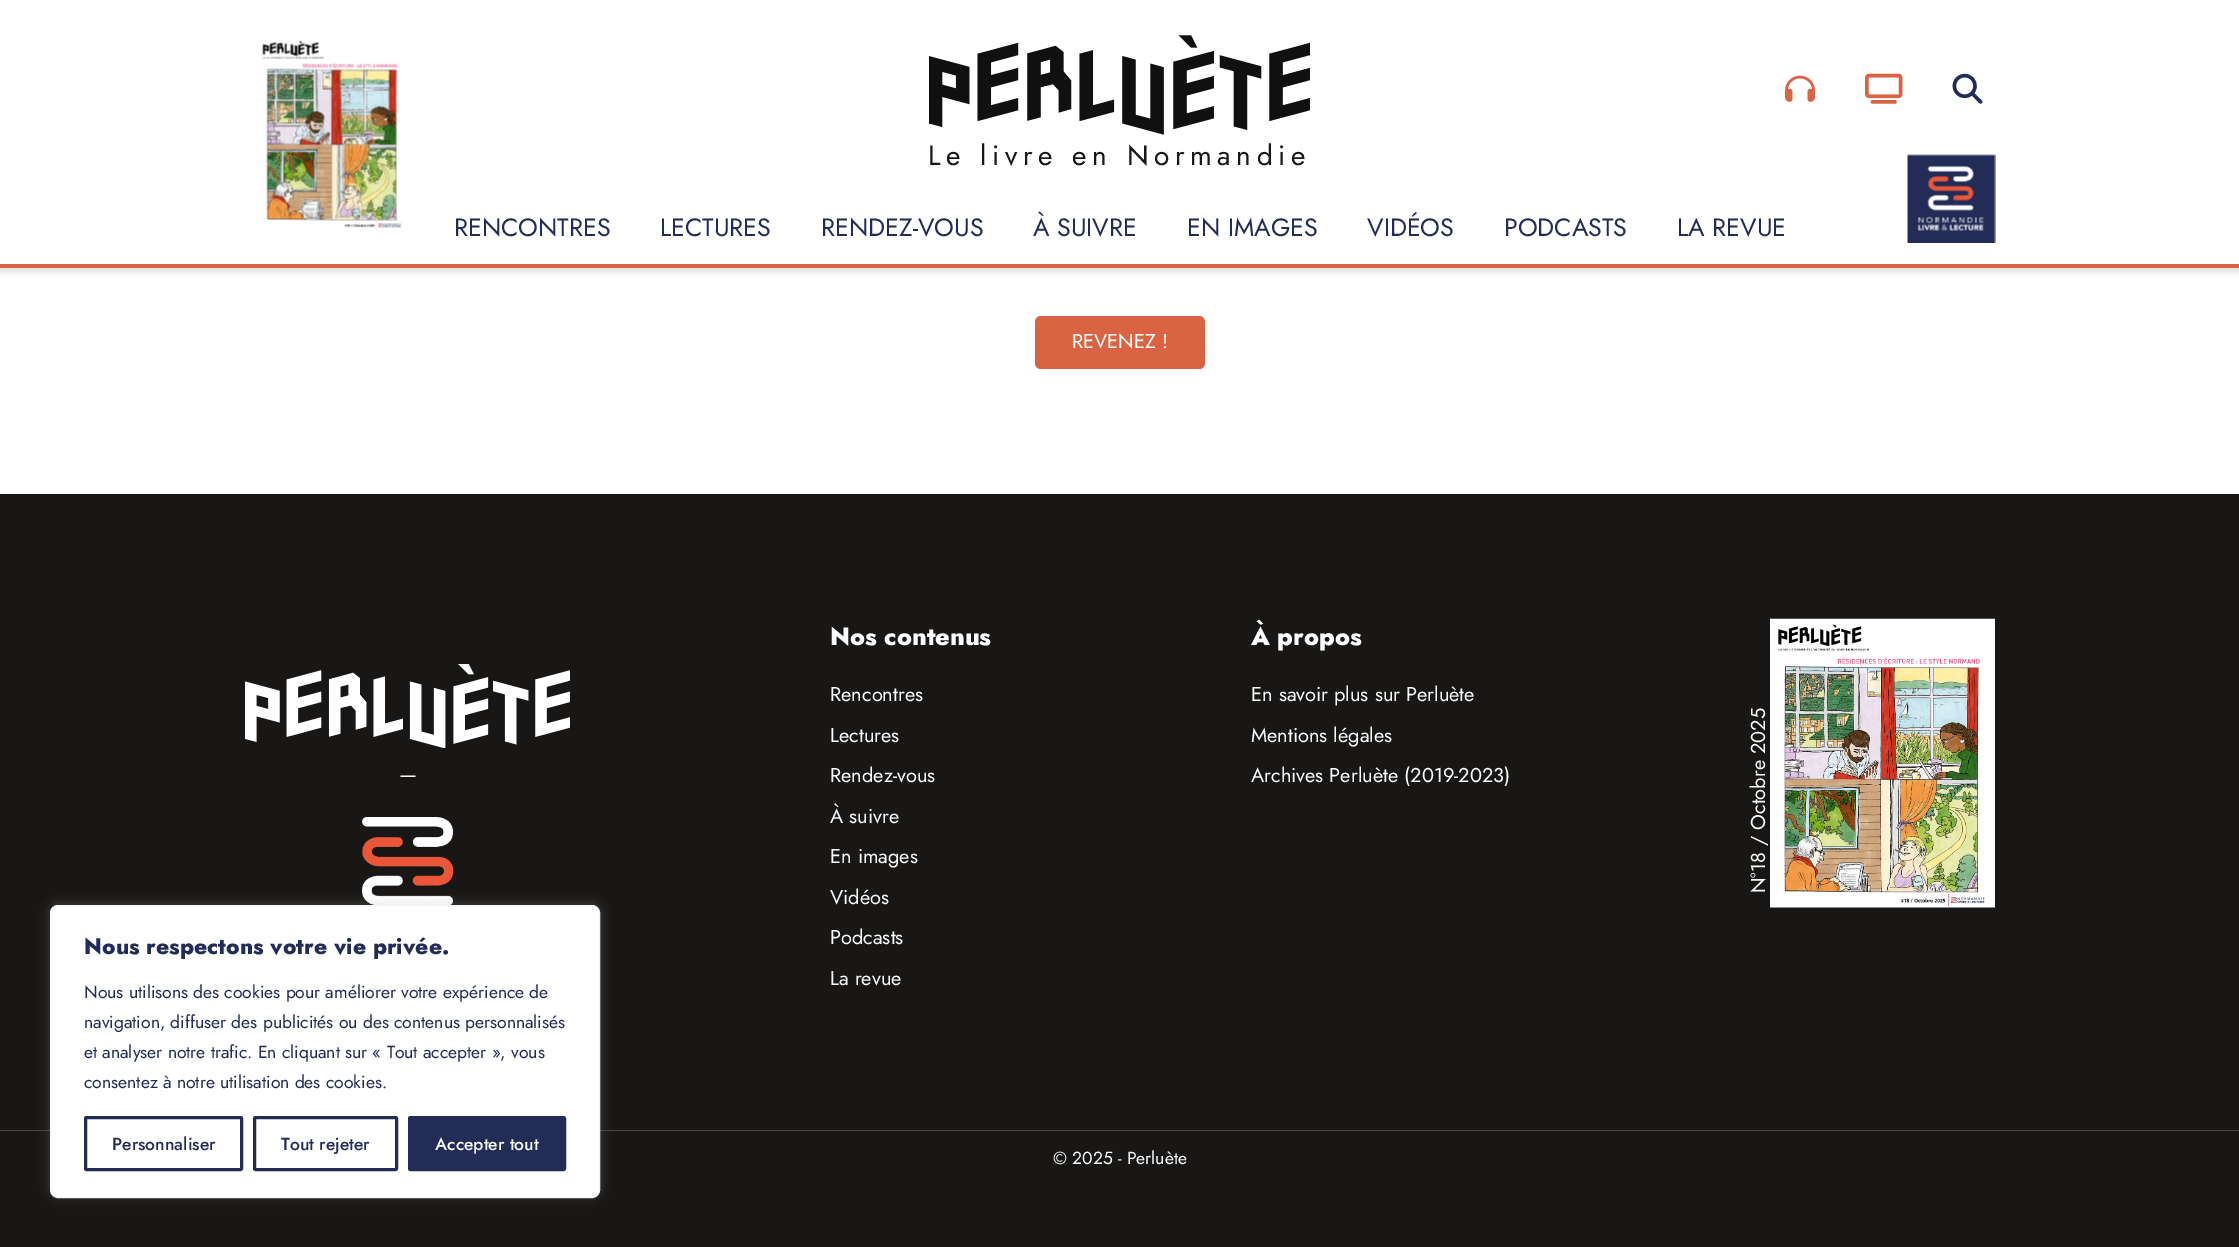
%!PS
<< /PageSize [2239 1247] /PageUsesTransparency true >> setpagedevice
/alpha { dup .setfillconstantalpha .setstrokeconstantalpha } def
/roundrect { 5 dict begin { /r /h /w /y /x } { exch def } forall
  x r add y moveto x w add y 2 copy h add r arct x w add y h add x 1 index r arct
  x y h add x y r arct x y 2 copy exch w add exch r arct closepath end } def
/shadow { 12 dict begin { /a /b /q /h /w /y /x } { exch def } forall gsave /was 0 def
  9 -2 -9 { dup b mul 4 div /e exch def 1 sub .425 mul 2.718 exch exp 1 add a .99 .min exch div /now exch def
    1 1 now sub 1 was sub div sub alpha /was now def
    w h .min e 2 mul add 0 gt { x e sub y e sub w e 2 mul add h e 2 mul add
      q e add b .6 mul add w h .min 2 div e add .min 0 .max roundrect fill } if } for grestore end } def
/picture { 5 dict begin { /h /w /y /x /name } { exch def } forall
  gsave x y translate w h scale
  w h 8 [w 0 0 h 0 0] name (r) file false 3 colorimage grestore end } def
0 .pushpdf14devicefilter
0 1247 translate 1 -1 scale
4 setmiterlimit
1 setgray
0 0 2239 1247 rectfill
0.094 0.09 0.086 setrgbcolor
0 494 2239 753 rectfill
(img8.rgb) 362 817 92 88 picture
0.275 0.267 0.255 setrgbcolor
0 1130 2239 1 rectfill
0.675 0.671 0.671 setrgbcolor
50 904 550 292 8 6 0.3 shadow
1 setgray
50.5 905.5 549 292 7.5 roundrect gsave fill grestore
0.957 setgray
stroke
/Jost-ExtraBold [22.5 0 0 -22.5 0 0] selectfont
0.137 0.173 0.341 setrgbcolor
84 954 moveto (Nous respectons votre vie privée.) show
/Jost-Regular [17.5 0 0 -17.5 0 0] selectfont
84 998 moveto (Nous utilisons des cookies pour améliorer votre expérience de) show
84 1028 moveto (navigation, diffuser des publicités ou des contenus personnalisés) show
84 1058 moveto (et analyser notre trafic. En cliquant sur « Tout accepter », vous) show
84 1088 moveto (consentez à notre utilisation des cookies.) show
3 setlinewidth
85.5 1117.5 156 52 1 roundrect stroke
/Jost-Medium [17.5 0 0 -17.5 0 0] selectfont
112 1150 moveto (Personnaliser) show
254.5 1117.5 142 52 1 roundrect stroke
281 1150 moveto (Tout rejeter) show
409.5 1117.5 155 52 1 roundrect gsave fill grestore
stroke
1 setgray
435 1150 moveto (Accepter tout) show
0 setgray
-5 -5 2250 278 0 2.5 0.1 shadow
1 setgray
0 0 2239 264 rectfill
(img1.rgb) 262 40 140 190 picture
(img2.rgb) 1785 75 30 27 picture
(img3.rgb) 1865 73 38 31 picture
(img4.rgb) 1952 73 31 31 picture
(img5.rgb) 929 35 381 100 picture
/Jost-Regular [28 0 0 -28 0 0] selectfont
0.094 0.09 0.086 setrgbcolor
928 165 moveto 5.6 0 (Le livre en Normandie) ashow
/Jost-Regular [25 0 0 -25 0 0] selectfont
0.137 0.173 0.341 setrgbcolor
454 236 moveto (RENCONTRES) show
660 236 moveto (LECTURES) show
821 236 moveto (RENDEZ-VOUS) show
1033 236 moveto (À SUIVRE) show
1187 236 moveto (EN IMAGES) show
1367 236 moveto (VIDÉOS) show
1504 236 moveto (PODCASTS) show
1677 236 moveto (LA REVUE) show
(img6.rgb) 1907 154 89 89 picture
0.851 0.388 0.263 setrgbcolor
0 264 2239 4 rectfill
1035 316 170 53 6 roundrect fill
/Jost-Regular [20 0 0 -20 0 0] selectfont
1 setgray
1072 348 moveto (REVENEZ !) show
(img7.rgb) 245 664 325 84 picture
399 781 moveto (—) show
/Jost-ExtraBold [25 0 0 -25 0 0] selectfont
830 645 moveto (Nos contenus) show
/Jost-Regular [20 0 0 -20 0 0] selectfont
830 701 moveto (Rencontres) show
830 742 moveto (Lectures) show
830 782 moveto (Rendez-vous) show
830 823 moveto (À suivre) show
830 863 moveto (En images) show
830 904 moveto (Vidéos) show
830 944 moveto (Podcasts) show
830 985 moveto (La revue) show
/Jost-ExtraBold [25 0 0 -25 0 0] selectfont
1251 645 moveto (À propos) show
/Jost-Regular [20 0 0 -20 0 0] selectfont
1251 701 moveto (En savoir plus sur Perluète) show
1251 742 moveto (Mentions légales) show
1251 782 moveto (Archives Perluète \(2019-2023\)) show
gsave 1765 893 translate -90 rotate 0 0 moveto (N°18 / Octobre 2025) show grestore
(img9.rgb) 1770 618 225 290 picture
/Jost-Regular [17.5 0 0 -17.5 0 0] selectfont
1053 1164 moveto (© 2025 - Perluète) show
.poppdf14devicefilter showpage
